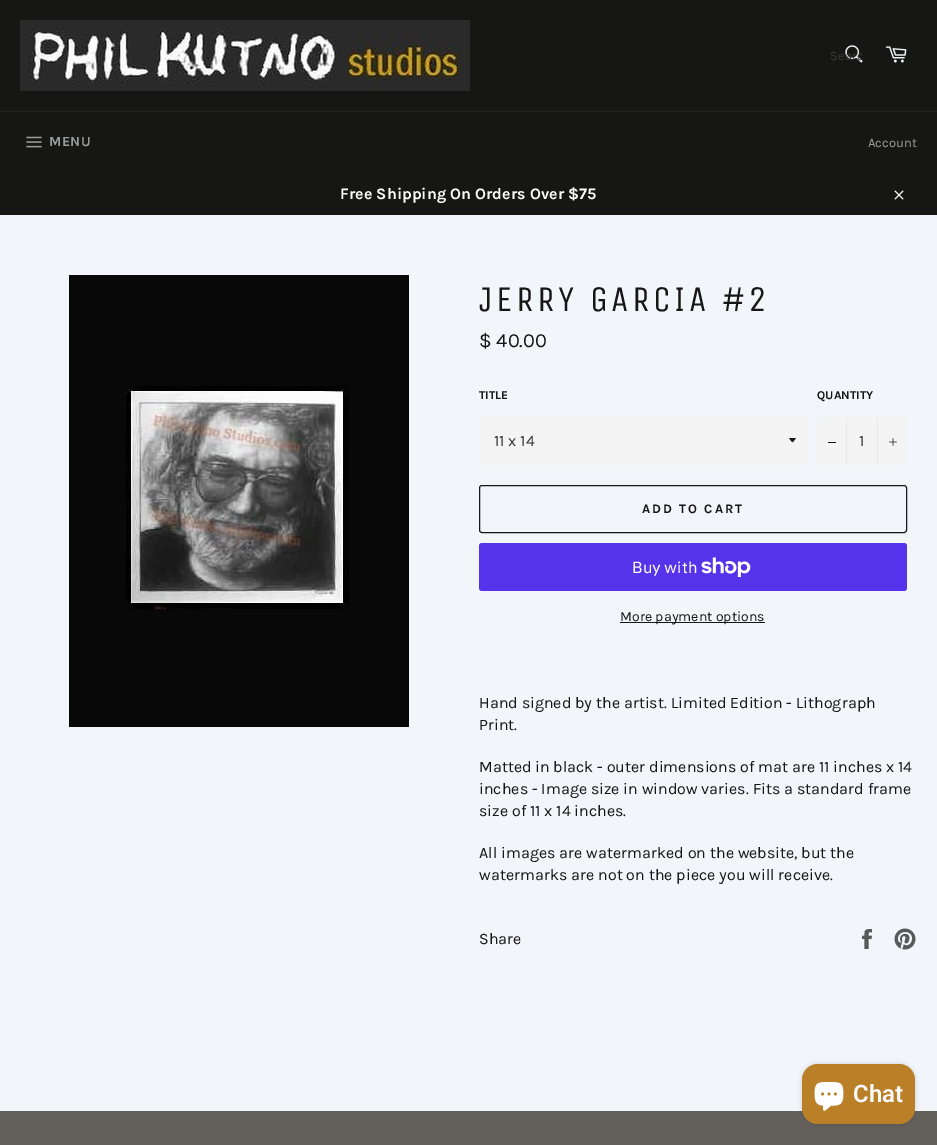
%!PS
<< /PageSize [937 1145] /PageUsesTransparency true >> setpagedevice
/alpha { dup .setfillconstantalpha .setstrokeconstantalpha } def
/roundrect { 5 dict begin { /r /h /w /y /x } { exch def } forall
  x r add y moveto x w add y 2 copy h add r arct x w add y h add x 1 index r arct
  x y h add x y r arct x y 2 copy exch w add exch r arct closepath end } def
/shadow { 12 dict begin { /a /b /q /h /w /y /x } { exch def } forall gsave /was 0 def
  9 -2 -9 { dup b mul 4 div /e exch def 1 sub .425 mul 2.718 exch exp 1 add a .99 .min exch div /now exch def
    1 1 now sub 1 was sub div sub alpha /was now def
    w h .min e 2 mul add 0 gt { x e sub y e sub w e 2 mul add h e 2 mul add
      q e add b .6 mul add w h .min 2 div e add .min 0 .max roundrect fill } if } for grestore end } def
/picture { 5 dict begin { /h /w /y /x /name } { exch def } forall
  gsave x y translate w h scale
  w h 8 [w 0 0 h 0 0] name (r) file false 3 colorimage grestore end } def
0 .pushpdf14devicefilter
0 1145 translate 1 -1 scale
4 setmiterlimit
0.949 0.961 0.976 setrgbcolor
0 0 937 1145 rectfill
0.086 0.086 0.078 setrgbcolor
0 0 937 215 rectfill
(img1.rgb) 20 20 450 71 picture
(img2.rgb) 845 45 18 18 picture
gsave
830 48 32 15 rectclip
/Karla-Regular [13 0 0 -13 0 0] selectfont
0.224 0.224 0.22 setrgbcolor
830 60 moveto (Searc) show
grestore
(img3.rgb) 885 46 22 17 picture
0.137 0.137 0.125 setrgbcolor
0 111 937 1 rectfill
(img4.rgb) 26 136 16 12 picture
/Karla-Bold [14 0 0 -14 0 0] selectfont
0.604 0.612 0.616 setrgbcolor
49 146 moveto 0.5 0 (MENU) ashow
/Karla-Regular [13 0 0 -13 0 0] selectfont
868 147 moveto (Account) show
/Karla-Bold [16 0 0 -16 0 0] selectfont
0.98 setgray
340 199 moveto (Free Shipping On Orders Over $75) show
(img5.rgb) 894 190 10 10 picture
(img6.rgb) 69 275 340 452 picture
/UnicaOne-Regular [36 0 0 -36 0 0] selectfont
0.086 0.086 0.078 setrgbcolor
479 311 moveto 3.6 0 (JERRY GARCIA #2) ashow
/Karla-Regular [20 0 0 -20 0 0] selectfont
479 347 moveto ($ 40.00) show
/Karla-Bold [12 0 0 -12 0 0] selectfont
479 399 moveto (TITLE) show
0.957 setgray
479 417 328 48 rectfill
0.086 0.086 0.078 setrgbcolor
newpath 789 438 moveto 793.5 443.5 791.5 443.5 796 438 curveto closepath fill
/Karla-Regular [16 0 0 -16 0 0] selectfont
0.2 setgray
494 446 moveto (11 x 14) show
/Karla-Bold [12 0 0 -12 0 0] selectfont
0.086 0.086 0.078 setrgbcolor
817 399 moveto (QUANTITY) show
0.957 setgray
817 417 90 48 rectfill
0.906 setgray
846 417 1 48 rectfill
0.086 0.086 0.078 setrgbcolor
828 442 8 1 rectfill
/Karla-Regular [16 0 0 -16 0 0] selectfont
0.2 setgray
859 446 moveto (1) show
0.906 setgray
877 417 1 48 rectfill
(img7.rgb) 889 438 8 8 picture
0.086 0.086 0.078 setrgbcolor
479.5 485.5 427 47 2.5 roundrect stroke
/Karla-Bold [13 0 0 -13 0 0] selectfont
642 513 moveto 2 0 (ADD TO CART) ashow
0.329 0.2 0.922 setrgbcolor
479 543 428 48 3 roundrect fill
/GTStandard-Regular [16 0 0 -16 0 0] selectfont
0.98 setgray
632 573 moveto (Buy with) show
(img8.rgb) 701 557 50 20 picture
0.086 0.086 0.078 setrgbcolor
620 622 145 1 rectfill
/Karla-Regular [14 0 0 -14 0 0] selectfont
620 621 moveto (More payment options) show
/Karla-Regular [16 0 0 -16 0 0] selectfont
479 708 moveto (Hand signed by the artist. Limited Edition - Lithograph) show
479 730 moveto (Print.) show
479 772 moveto (Matted in black - outer dimensions of mat are 11 inches x 14) show
479 794 moveto (inches - Image size in window varies. Fits a standard frame) show
479 816 moveto (size of 11 x 14 inches.) show
479 858 moveto (All images are watermarked on the website, but the) show
479 880 moveto (watermarks are not on the piece you will receive.) show
479 944 moveto (Share) show
(img9.rgb) 862 929 10 20 picture
(img10.rgb) 894 928 22 22 picture
0.388 0.376 0.357 setrgbcolor
0 1111 937 34 rectfill
0 setgray
802 1064 113 60 16 2.5 0.15 shadow
0.729 0.502 0.153 setrgbcolor
802 1064 113 60 16 roundrect fill
(img11.rgb) 814 1082 30 29 picture
/Roboto-SemiBold [24 0 0 -24 0 0] selectfont
0.98 setgray
853 1102 moveto (Chat) show
.poppdf14devicefilter showpage
